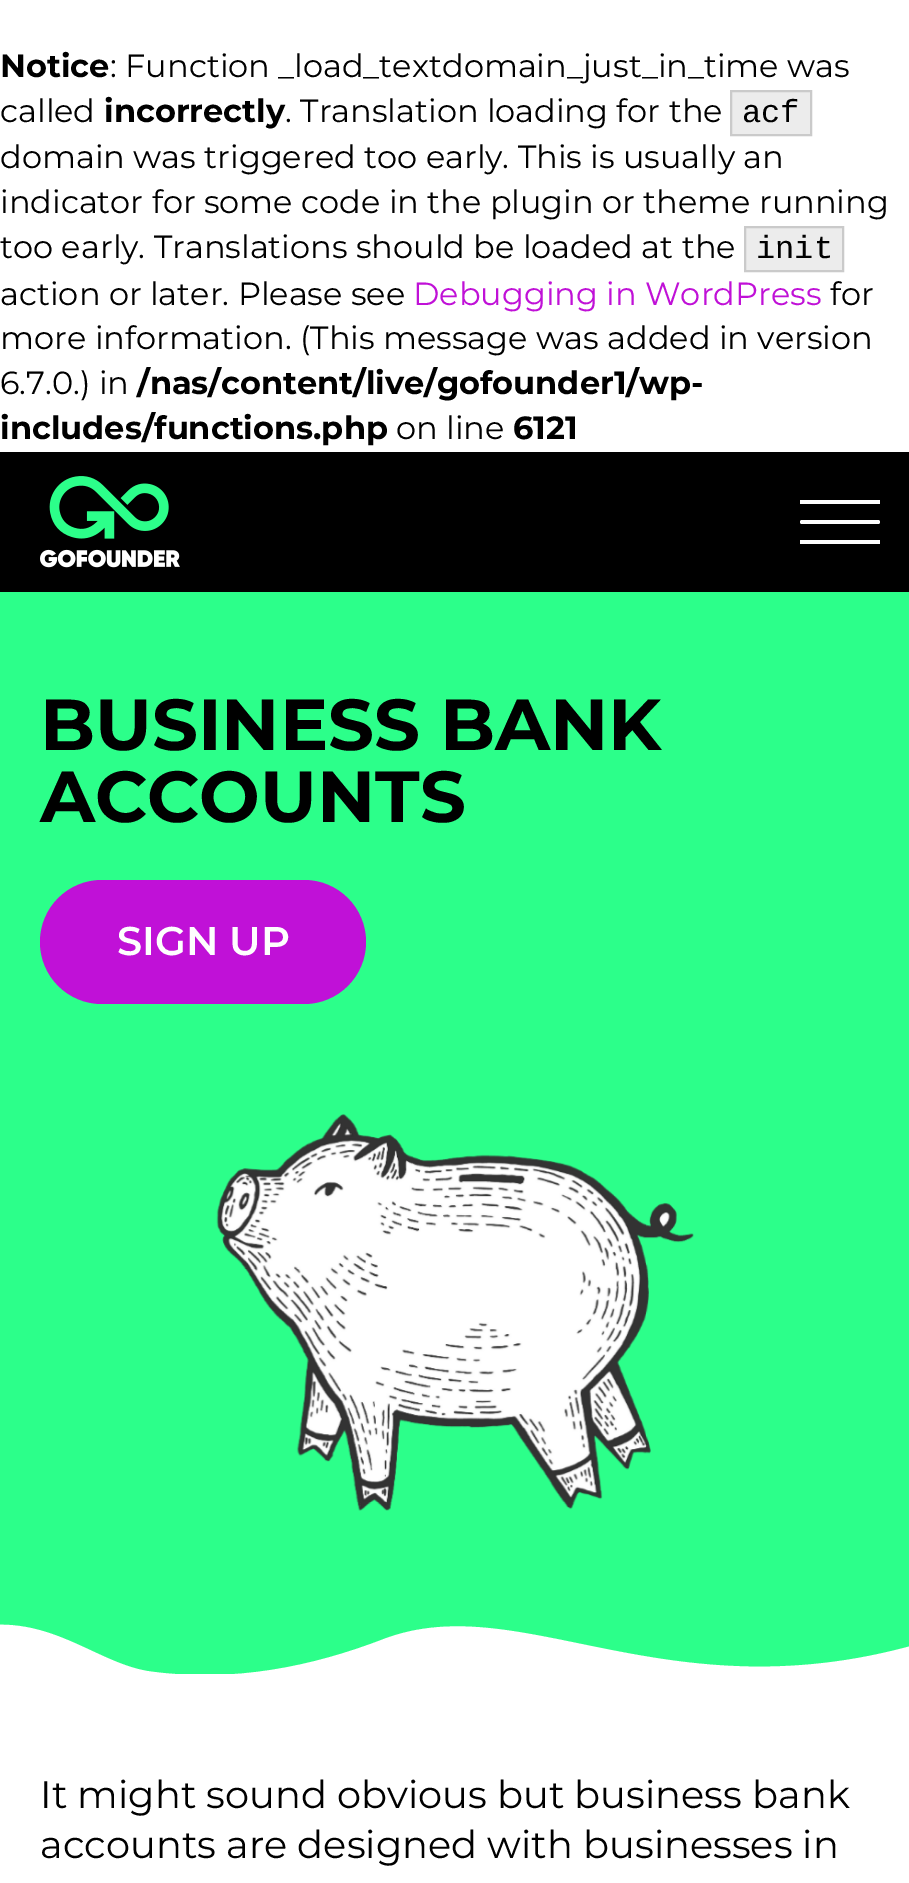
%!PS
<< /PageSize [909 1883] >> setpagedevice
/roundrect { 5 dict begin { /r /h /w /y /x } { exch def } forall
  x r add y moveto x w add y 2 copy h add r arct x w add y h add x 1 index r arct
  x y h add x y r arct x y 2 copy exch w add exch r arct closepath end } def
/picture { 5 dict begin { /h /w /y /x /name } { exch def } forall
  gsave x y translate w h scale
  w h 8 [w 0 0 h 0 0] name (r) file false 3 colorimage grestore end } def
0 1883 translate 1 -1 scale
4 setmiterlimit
1 setgray
0 0 909 1883 rectfill
/Montserrat-Bold [32 0 0 -32 0 0] selectfont
0 setgray
0 77 moveto (Notice) show
/Montserrat-Regular [32 0 0 -32 0 0] selectfont
110 77 moveto (: Function _load_textdomain_just_in_time was) show
0 122 moveto (called) show
/Montserrat-Bold [32 0 0 -32 0 0] selectfont
104 122 moveto (incorrectly) show
/Montserrat-Regular [32 0 0 -32 0 0] selectfont
285 122 moveto (. Translation loading for the) show
0.925 setgray
newpath 731 91 moveto 811 91 lineto 811 135 lineto 731 135 lineto closepath gsave fill grestore
0.792 setgray
2 setlinewidth
stroke
/LiberationMono-Regular [32 0 0 -32 0 0] selectfont
0 setgray
742 122 moveto (acf) show
/Montserrat-Regular [32 0 0 -32 0 0] selectfont
0 168 moveto (domain was triggered too early. This is usually an) show
0 213 moveto (indicator for some code in the plugin or theme running) show
0 258 moveto (too early. Translations should be loaded at the) show
0.925 setgray
newpath 745 227 moveto 843 227 lineto 843 271 lineto 745 271 lineto closepath gsave fill grestore
0.792 setgray
stroke
/LiberationMono-Regular [32 0 0 -32 0 0] selectfont
0 setgray
756 258 moveto (init) show
/Montserrat-Regular [32 0 0 -32 0 0] selectfont
0 305 moveto (action or later. Please see) show
0.753 0.067 0.843 setrgbcolor
413 305 moveto (Debugging in WordPress) show
0 setgray
830 305 moveto (for) show
0 349 moveto (more information. \(This message was added in version) show
0 394 moveto (6.7.0.\) in) show
/Montserrat-Bold [32 0 0 -32 0 0] selectfont
137 394 moveto (/nas/content/live/gofounder1/wp-) show
0 439 moveto (includes/functions.php) show
/Montserrat-Regular [32 0 0 -32 0 0] selectfont
396 439 moveto (on line) show
/Montserrat-Bold [32 0 0 -32 0 0] selectfont
513 439 moveto (6121) show
0 452 909 140 rectfill
(img1.rgb) 40 476 140 92 picture
0.996 setgray
800 520 80 4 2 roundrect fill
800 500 80 4 rectfill
800 540 80 4 rectfill
0.173 1 0.541 setrgbcolor
0 592 909 996 rectfill
/Montserrat-Bold [72 0 0 -72 0 0] selectfont
0 setgray
40 750 moveto (BUSINESS BANK) show
40 822 moveto (ACCOUNTS) show
0.753 0.067 0.843 setrgbcolor
40 880 326 124 62 roundrect fill
/Montserrat-SemiBold [40 0 0 -40 0 0] selectfont
0.996 setgray
117 955 moveto (SIGN UP) show
(img2.rgb) 216 1114 478 397 picture
gsave
0 1588 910 86 rectclip
0.173 1 0.541 setrgbcolor
newpath 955 1588 moveto -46 1588 lineto -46 1632 lineto 42 1604 91 1662 149 1671 curveto 233 1683 313 1666 383 1639 curveto 527 1584 678 1729 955 1632 curveto closepath eofill
grestore
/Montserrat-Regular [38.4 0 0 -38.4 0 0] selectfont
0 setgray
40 1808 moveto (It might sound obvious but business bank) show
40 1858 moveto (accounts are designed with businesses in) show
showpage
